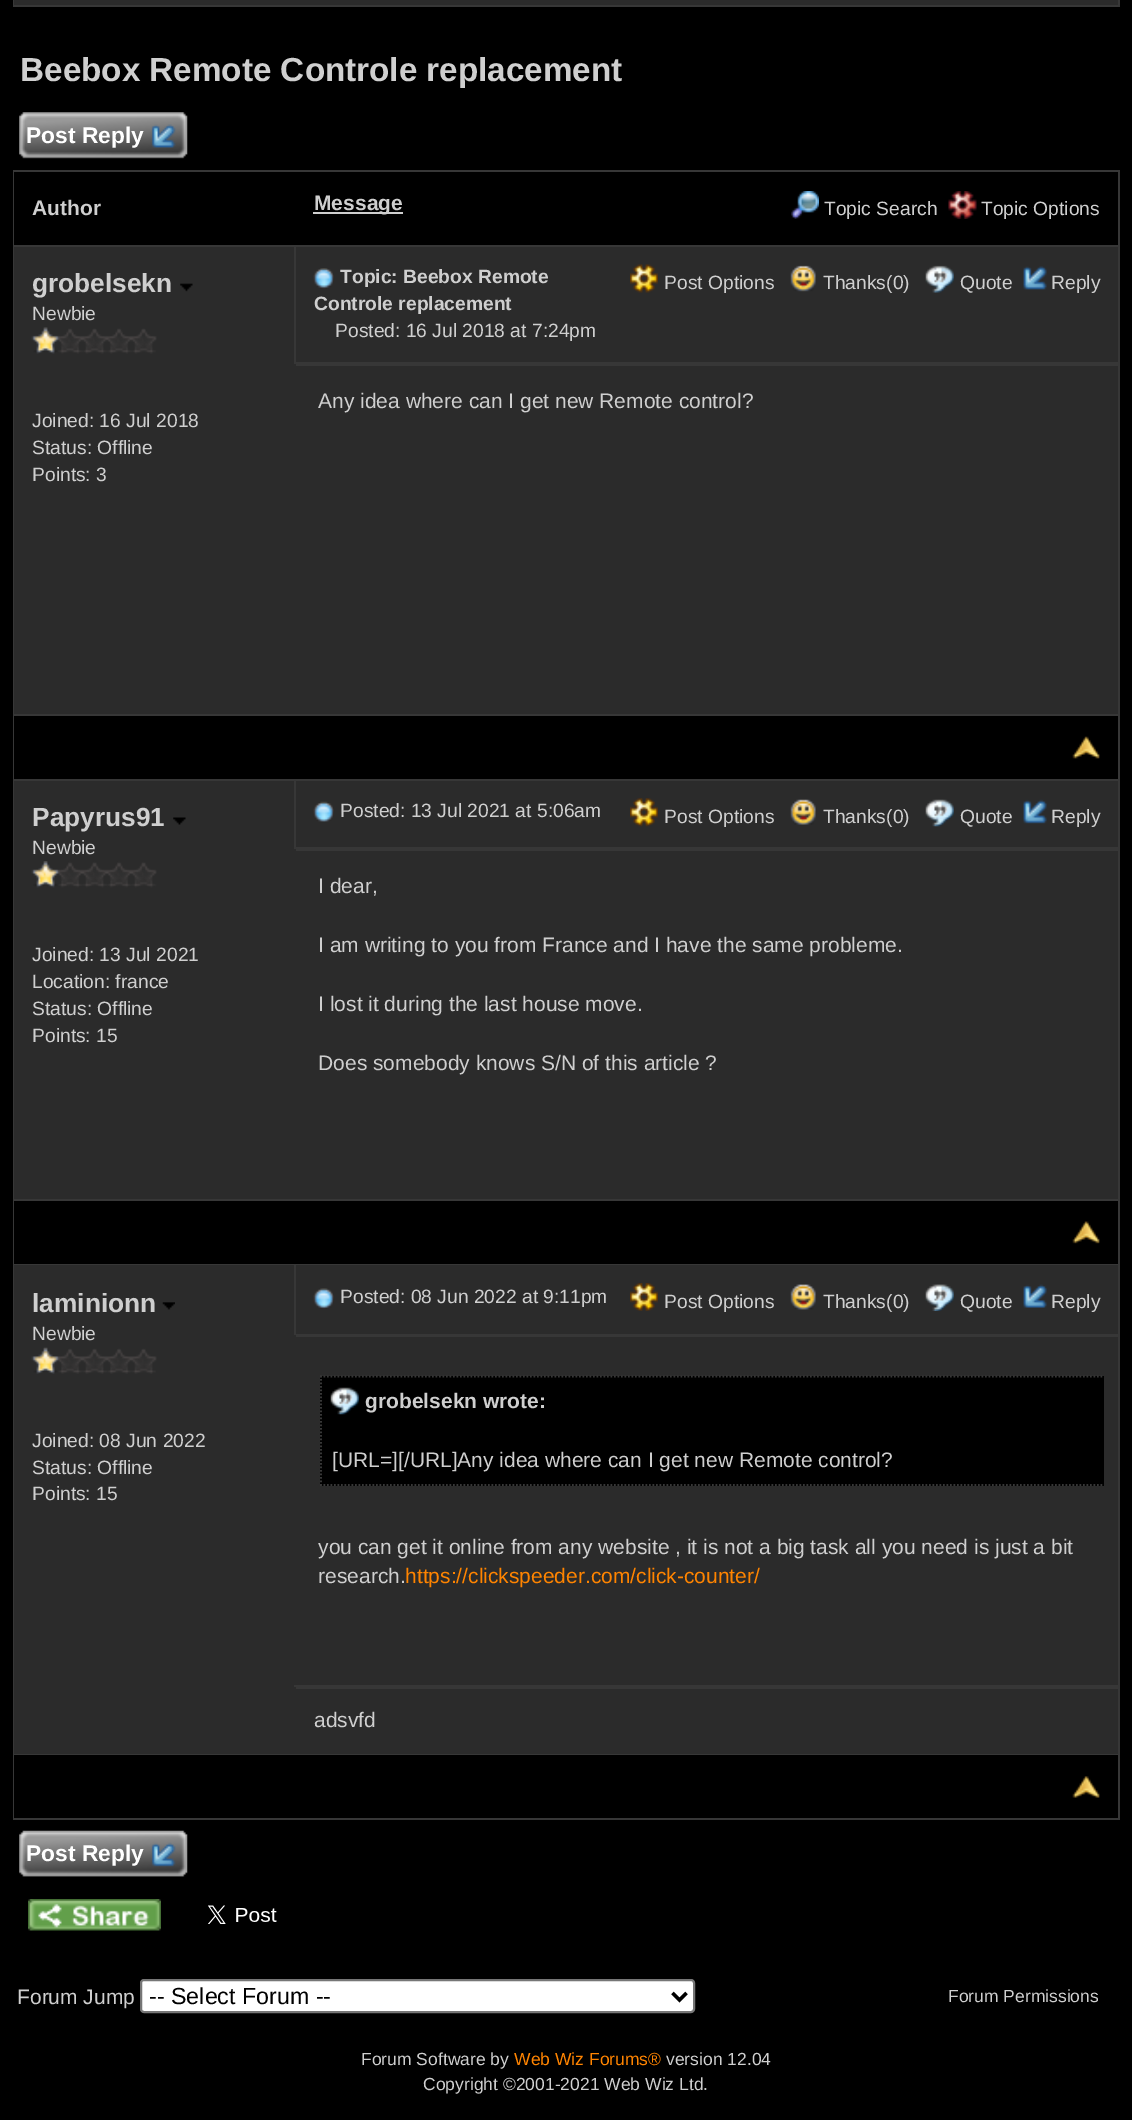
%!PS
<< /PageSize [1132 2120] >> setpagedevice
/roundrect { 5 dict begin { /r /h /w /y /x } { exch def } forall
  x r add y moveto x w add y 2 copy h add r arct x w add y h add x 1 index r arct
  x y h add x y r arct x y 2 copy exch w add exch r arct closepath end } def
/picture { 5 dict begin { /h /w /y /x /name } { exch def } forall
  gsave x y translate w h scale
  w h 8 [w 0 0 h 0 0] name (r) file false 3 colorimage grestore end } def
0 2120 translate 1 -1 scale
4 setmiterlimit
0 setgray
0 0 1132 2120 rectfill
0.216 setgray
13 0 1107 7 rectfill
0.169 setgray
14 0 1104 5 rectfill
/LiberationSans-Bold [33.25 0 0 -33.25 0 0] selectfont
0.812 setgray
20 81 moveto (Beebox Remote Controle replacement) show
(img1.rgb) 19 112 169 47 picture
/LiberationSans-Bold [22.75 0 0 -22.75 0 0] selectfont
1 setgray
26 143 moveto (Post Reply) show
(img2.rgb) 151 124 25 24 picture
0.216 setgray
13 170 1107 1650 rectfill
0 setgray
14 172 1104 73 rectfill
/LiberationSans-Bold [21 0 0 -21 0 0] selectfont
0.812 setgray
32 215 moveto (Author) show
313 212 90 2 rectfill
314 210 moveto (Message) show
(img3.rgb) 791 191 28 28 picture
/LiberationSans-Regular [19.25 0 0 -19.25 0 0] selectfont
824 215 moveto (Topic Search) show
(img4.rgb) 948 191 29 28 picture
981 215 moveto (Topic Options) show
0.169 setgray
14 247 280 117 rectfill
/LiberationSans-Bold [26.25 0 0 -26.25 0 0] selectfont
0.812 setgray
32 292 moveto (grobelsekn) show
(img5.rgb) 180 283 13 9 picture
/LiberationSans-Regular [19.25 0 0 -19.25 0 0] selectfont
32 320 moveto (Newbie) show
(img6.rgb) 31 327 126 27 picture
0.169 setgray
14 364 1104 350 rectfill
0.812 setgray
32 427 moveto (Joined: 16 Jul 2018) show
32 454 moveto (Status: Offline) show
32 481 moveto (Points: 3) show
0.169 setgray
296 247 822 115 rectfill
(img7.rgb) 313 268 21 21 picture
/LiberationSans-Bold [19.25 0 0 -19.25 0 0] selectfont
0.812 setgray
340 283 moveto (Topic: Beebox Remote) show
(img8.rgb) 630 264 28 29 picture
/LiberationSans-Regular [19.25 0 0 -19.25 0 0] selectfont
664 289 moveto (Post Options) show
(img9.rgb) 790 265 26 27 picture
823 289 moveto (Thanks\(0\)) show
(img10.rgb) 925 265 29 28 picture
960 289 moveto (Quote) show
(img11.rgb) 1023 266 24 24 picture
1051 289 moveto (Reply) show
/LiberationSans-Bold [19.25 0 0 -19.25 0 0] selectfont
314 310 moveto (Controle replacement) show
/LiberationSans-Regular [19.25 0 0 -19.25 0 0] selectfont
335 337 moveto (Posted: 16 Jul 2018 at 7:24pm) show
0.216 setgray
296 364 822 2 rectfill
/LiberationSans-Regular [21 0 0 -21 0 0] selectfont
0.812 setgray
318 408 moveto (Any idea where can I get new Remote control?) show
0 setgray
14 716 1104 63 rectfill
(img12.rgb) 1072 736 28 23 picture
0.169 setgray
14 781 280 68 rectfill
/LiberationSans-Bold [26.25 0 0 -26.25 0 0] selectfont
0.812 setgray
32 826 moveto (Papyrus91) show
(img13.rgb) 173 817 13 8 picture
0.169 setgray
14 849 1104 350 rectfill
/LiberationSans-Regular [19.25 0 0 -19.25 0 0] selectfont
0.812 setgray
32 854 moveto (Newbie) show
(img14.rgb) 31 861 126 27 picture
32 961 moveto (Joined: 13 Jul 2021) show
32 988 moveto (Location: france) show
32 1015 moveto (Status: Offline) show
32 1042 moveto (Points: 15) show
0.169 setgray
296 781 822 66 rectfill
(img15.rgb) 313 801 21 21 picture
0.812 setgray
340 817 moveto (Posted: 13 Jul 2021 at 5:06am) show
(img16.rgb) 630 798 28 29 picture
664 823 moveto (Post Options) show
(img17.rgb) 790 799 26 26 picture
823 823 moveto (Thanks\(0\)) show
(img18.rgb) 925 799 29 28 picture
960 823 moveto (Quote) show
(img19.rgb) 1023 799 24 25 picture
1051 823 moveto (Reply) show
0.216 setgray
296 849 822 2 rectfill
/LiberationSans-Regular [21 0 0 -21 0 0] selectfont
0.812 setgray
318 893 moveto (I dear,) show
318 952 moveto (I am writing to you from France and I have the same probleme.) show
318 1011 moveto (I lost it during the last house move.) show
318 1070 moveto (Does somebody knows S/N of this article ?) show
0 setgray
14 1201 1104 63 rectfill
(img20.rgb) 1072 1221 28 23 picture
0.169 setgray
14 1265 280 422 rectfill
/LiberationSans-Bold [26.25 0 0 -26.25 0 0] selectfont
0.812 setgray
32 1312 moveto (laminionn) show
(img21.rgb) 162 1302 13 8 picture
/LiberationSans-Regular [19.25 0 0 -19.25 0 0] selectfont
32 1340 moveto (Newbie) show
(img22.rgb) 31 1347 126 27 picture
32 1447 moveto (Joined: 08 Jun 2022) show
32 1474 moveto (Status: Offline) show
32 1500 moveto (Points: 15) show
0.169 setgray
296 1265 822 69 rectfill
(img23.rgb) 313 1288 21 21 picture
0.812 setgray
340 1303 moveto (Posted: 08 Jun 2022 at 9:11pm) show
(img24.rgb) 630 1283 28 28 picture
664 1308 moveto (Post Options) show
(img25.rgb) 790 1284 26 26 picture
823 1308 moveto (Thanks\(0\)) show
(img26.rgb) 925 1284 29 27 picture
960 1308 moveto (Quote) show
(img27.rgb) 1023 1284 24 24 picture
1051 1308 moveto (Reply) show
0.169 setgray
294 1335 824 350 rectfill
0.216 setgray
296 1335 822 2 rectfill
0 setgray
320 1376 784 110 rectfill
gsave
317 1358 787 235 rectclip
0.216 setgray
1.8 setlinewidth
[1.75 1.75] 0 setdash
newpath 320 1376.5 moveto 1109.5 1376.5 lineto stroke
newpath 320 1485 moveto 1109.5 1485 lineto stroke
grestore
0.216 setgray
1.8 setlinewidth
[1.75 1.75] 0 setdash
newpath 321 1375.5 moveto 321 1486 lineto stroke
(img28.rgb) 330 1387 29 28 picture
/LiberationSans-Bold [21 0 0 -21 0 0] selectfont
0.812 setgray
365 1408 moveto (grobelsekn wrote:) show
/LiberationSans-Regular [21 0 0 -21 0 0] selectfont
332 1467 moveto ([URL=][/URL]Any idea where can I get new Remote control?) show
318 1554 moveto (you can get it online from any website , it is not a big task all you need is just a bit) show
318 1583 moveto (research.) show
1 0.518 0 setrgbcolor
405 1583 moveto (https://clickspeeder.com/click-counter/) show
0.169 setgray
14 1687 1104 67 rectfill
0.216 setgray
296 1687 822 2 rectfill
0.812 setgray
314 1727 moveto (adsvfd) show
0 setgray
14 1755 1104 63 rectfill
(img29.rgb) 1072 1776 28 22 picture
(img30.rgb) 19 1830 169 47 picture
/LiberationSans-Bold [22.75 0 0 -22.75 0 0] selectfont
1 setgray
26 1861 moveto (Post Reply) show
(img31.rgb) 151 1842 25 25 picture
(img32.rgb) 28 1899 133 32 picture
(img33.rgb) 208 1905 69 19 picture
/LiberationSans-Regular [21 0 0 -21 0 0] selectfont
0.812 setgray
17 2004 moveto (Forum Jump) show
1 setgray
141 1980 553 32 3 roundrect gsave fill grestore
0.463 setgray
2 setlinewidth
[] 0 setdash
stroke
0 setgray
3.5 setlinewidth
newpath 672.5 1993 moveto 679.5 2000 lineto 686.5 1993 lineto stroke
/LiberationSans-Regular [23.25 0 0 -23.25 0 0] selectfont
149 2004 moveto (-- Select Forum --) show
/LiberationSans-Regular [17.5 0 0 -17.5 0 0] selectfont
0.812 setgray
948 2002 moveto (Forum Permissions) show
361 2065 moveto (Forum Software by) show
1 0.518 0 setrgbcolor
514 2065 moveto (Web Wiz Forums®) show
0.812 setgray
666 2065 moveto (version 12.04) show
423 2090 moveto (Copyright ©2001-2021 Web Wiz Ltd.) show
showpage
